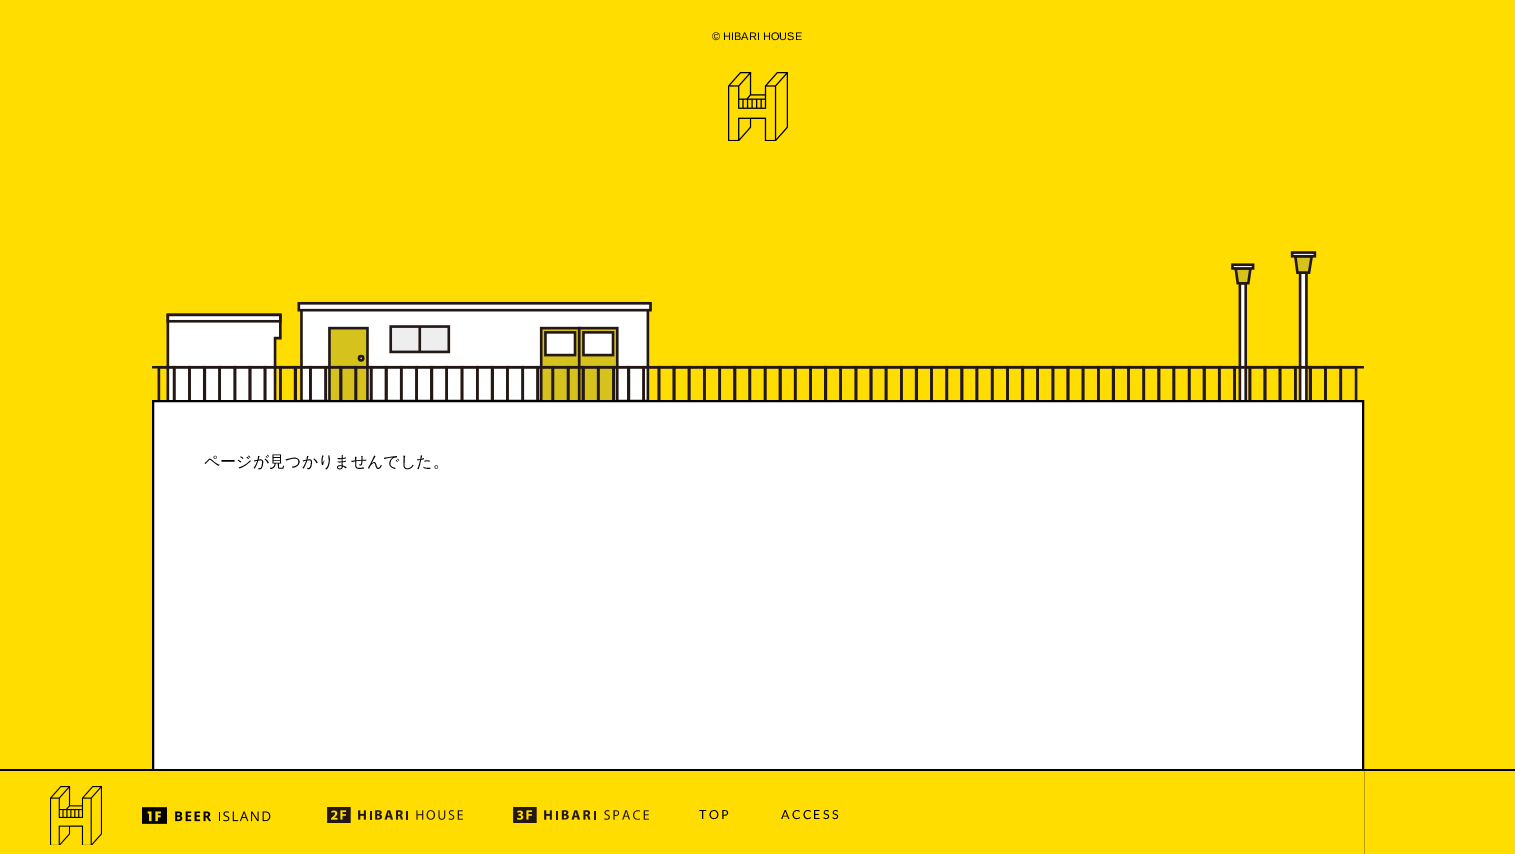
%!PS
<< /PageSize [1515 854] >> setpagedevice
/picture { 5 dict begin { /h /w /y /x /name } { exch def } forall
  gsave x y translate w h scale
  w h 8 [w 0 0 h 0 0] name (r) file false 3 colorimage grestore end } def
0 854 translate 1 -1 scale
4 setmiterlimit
1 0.867 0 setrgbcolor
0 0 1515 854 rectfill
/LiberationSans-Regular [11 0 0 -11 0 0] selectfont
0 setgray
712 40 moveto (© HIBARI HOUSE) show
(img1.rgb) 728 72 60 69 picture
(img2.rgb) 152 251 1212 149 picture
1 setgray
154 402 1208 367 rectfill
0 setgray
2 setlinewidth
153 401 1210 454 rectstroke
/WenQuanYiZenHei-Medium [16 0 0 -16 0 0] selectfont
204 467 moveto (ページが見つかりませんでした。) show
1 0.867 0 setrgbcolor
152 771 1212 83 rectfill
0 setgray
0 769 1515 2 rectfill
(img3.rgb) 50 786 52 59 picture
(img4.rgb) 142 807 129 17 picture
(img5.rgb) 327 807 136 16 picture
(img6.rgb) 513 807 136 16 picture
/Lato-Regular [12.5 0 0 -12.5 0 0] selectfont
699 819 moveto 2.25 0 (TOP) ashow
781 819 moveto 2.25 0 (ACCESS) ashow
showpage
